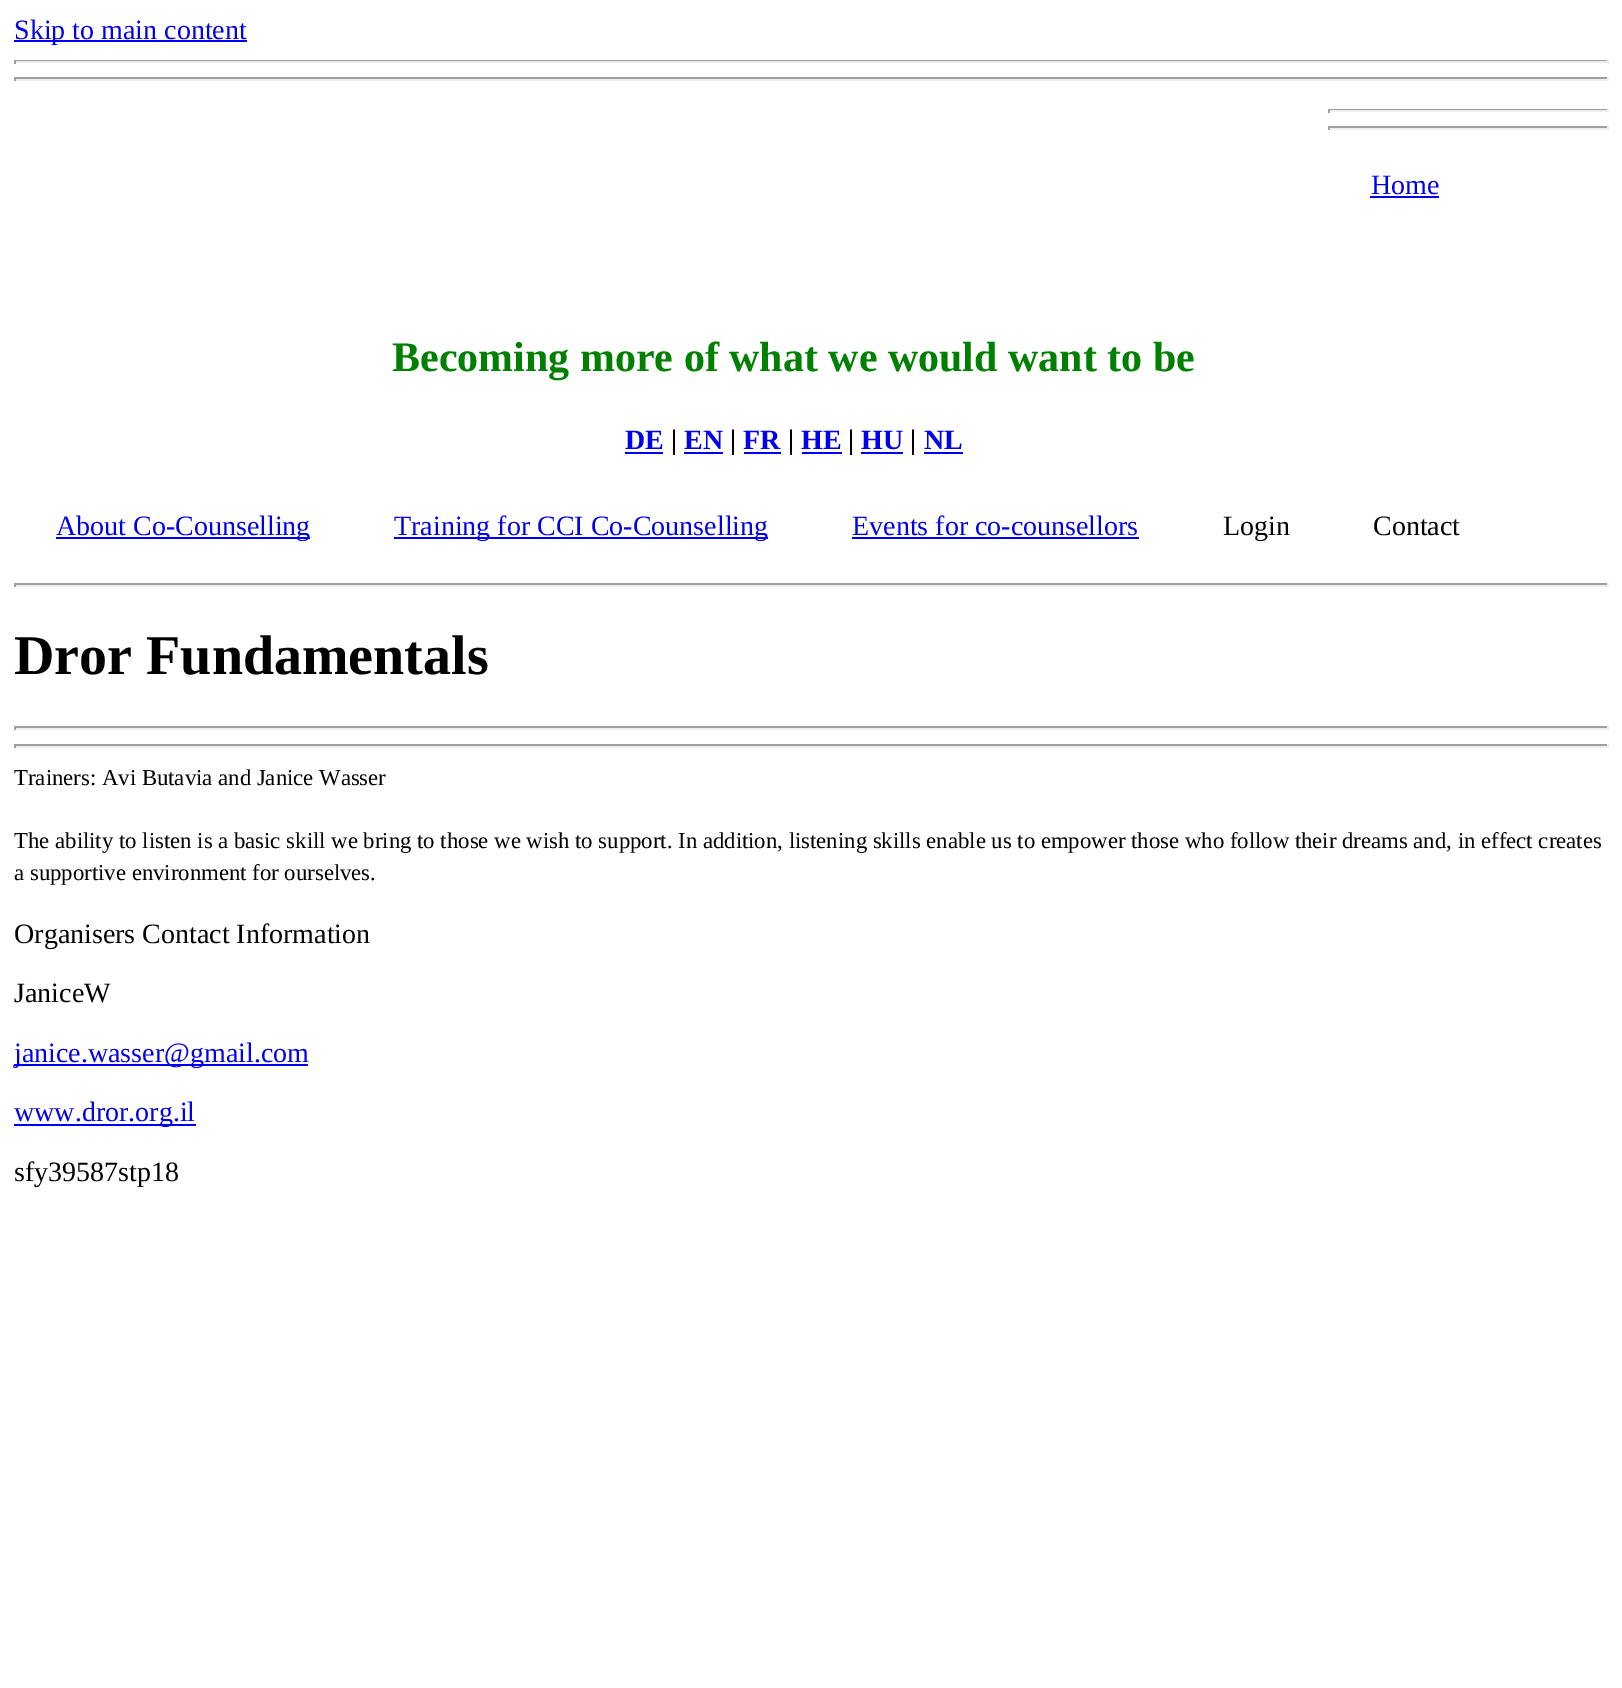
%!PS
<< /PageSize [1622 1688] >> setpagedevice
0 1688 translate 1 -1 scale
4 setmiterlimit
1 setgray
0 0 1622 1688 rectfill
0 0 0.933 setrgbcolor
14 40 233 2 rectfill
/LiberationSerif-Regular [28 0 0 -28 0 0] selectfont
14 39 moveto (Skip to main content) show
0.624 setgray
1328 126 280 2 rectfill
0.933 setgray
1607 126 2 4 rectfill
1328 128 280 2 rectfill
0.624 setgray
1328 126 2 4 rectfill
0 0 0.933 setrgbcolor
1371 194 moveto (Home) show
1370 196 69 2 rectfill
56 537 254 2 rectfill
56 535 moveto (About Co-Counselling) show
394 537 374 2 rectfill
394 535 moveto (Training for CCI Co-Counselling) show
852 535 moveto (Events for co-counsellors) show
852 537 287 2 rectfill
0 setgray
1223 535 moveto (Login) show
1373 535 moveto (Contact) show
0.624 setgray
14 60 1594 1 rectfill
0.933 setgray
1607 60 2 4 rectfill
14 61 1594 2 rectfill
0.624 setgray
14 60 2 4 rectfill
1328 109 280 1 rectfill
0.933 setgray
1607 109 2 4 rectfill
1328 110 280 2 rectfill
0.624 setgray
1328 109 2 4 rectfill
14 77 1594 2 rectfill
0.933 setgray
1607 77 2 4 rectfill
14 79 1594 2 rectfill
0.624 setgray
14 77 2 4 rectfill
/LiberationSerif-Bold [42 0 0 -42 0 0] selectfont
0 0.502 0 setrgbcolor
392 371 moveto (Becoming more of what we would want to be) show
/LiberationSerif-Bold [28 0 0 -28 0 0] selectfont
0 0 0.933 setrgbcolor
625 449 moveto (DE) show
625 452 38 2 rectfill
0 setgray
671 449 moveto (|) show
0 0 0.933 setrgbcolor
684 449 moveto (EN) show
684 452 39 2 rectfill
0 setgray
730 449 moveto (|) show
0 0 0.933 setrgbcolor
743 449 moveto (FR) show
744 452 37 2 rectfill
0 setgray
788 449 moveto (|) show
0 0 0.933 setrgbcolor
801 449 moveto (HE) show
802 452 40 2 rectfill
0 setgray
848 449 moveto (|) show
0 0 0.933 setrgbcolor
861 449 moveto (HU) show
861 452 42 2 rectfill
0 setgray
910 449 moveto (|) show
0 0 0.933 setrgbcolor
924 449 moveto (NL) show
924 452 39 2 rectfill
0.624 setgray
14 583 1594 2 rectfill
0.933 setgray
1607 583 2 4 rectfill
14 585 1594 2 rectfill
0.624 setgray
14 583 2 4 rectfill
/LiberationSerif-Bold [56 0 0 -56 0 0] selectfont
0 setgray
14 674 moveto (Dror Fundamentals) show
0.624 setgray
14 726 1594 2 rectfill
0.933 setgray
1607 726 2 4 rectfill
14 728 1594 2 rectfill
0.624 setgray
14 726 2 4 rectfill
14 744 1594 2 rectfill
0.933 setgray
1607 744 2 4 rectfill
14 746 1594 2 rectfill
0.624 setgray
14 744 2 4 rectfill
/LiberationSerif-Regular [22.75 0 0 -22.75 0 0] selectfont
0 setgray
14 785 moveto (Trainers: Avi Butavia and Janice Wasser) show
14 848 moveto (The ability to listen is a basic skill we bring to those we wish to support. In addition, listening skills enable us to empower those who follow their dreams and, in effect creates) show
14 880 moveto (a supportive environment for ourselves.) show
/LiberationSerif-Regular [28 0 0 -28 0 0] selectfont
14 943 moveto (Organisers Contact Information) show
14 1002 moveto (JaniceW) show
0 0 0.933 setrgbcolor
14 1064 294 2 rectfill
14 1062 moveto (janice.wasser@gmail.com) show
14 1124 182 2 rectfill
14 1121 moveto (www.dror.org.il) show
0 setgray
14 1181 moveto (sfy39587stp18) show
showpage
